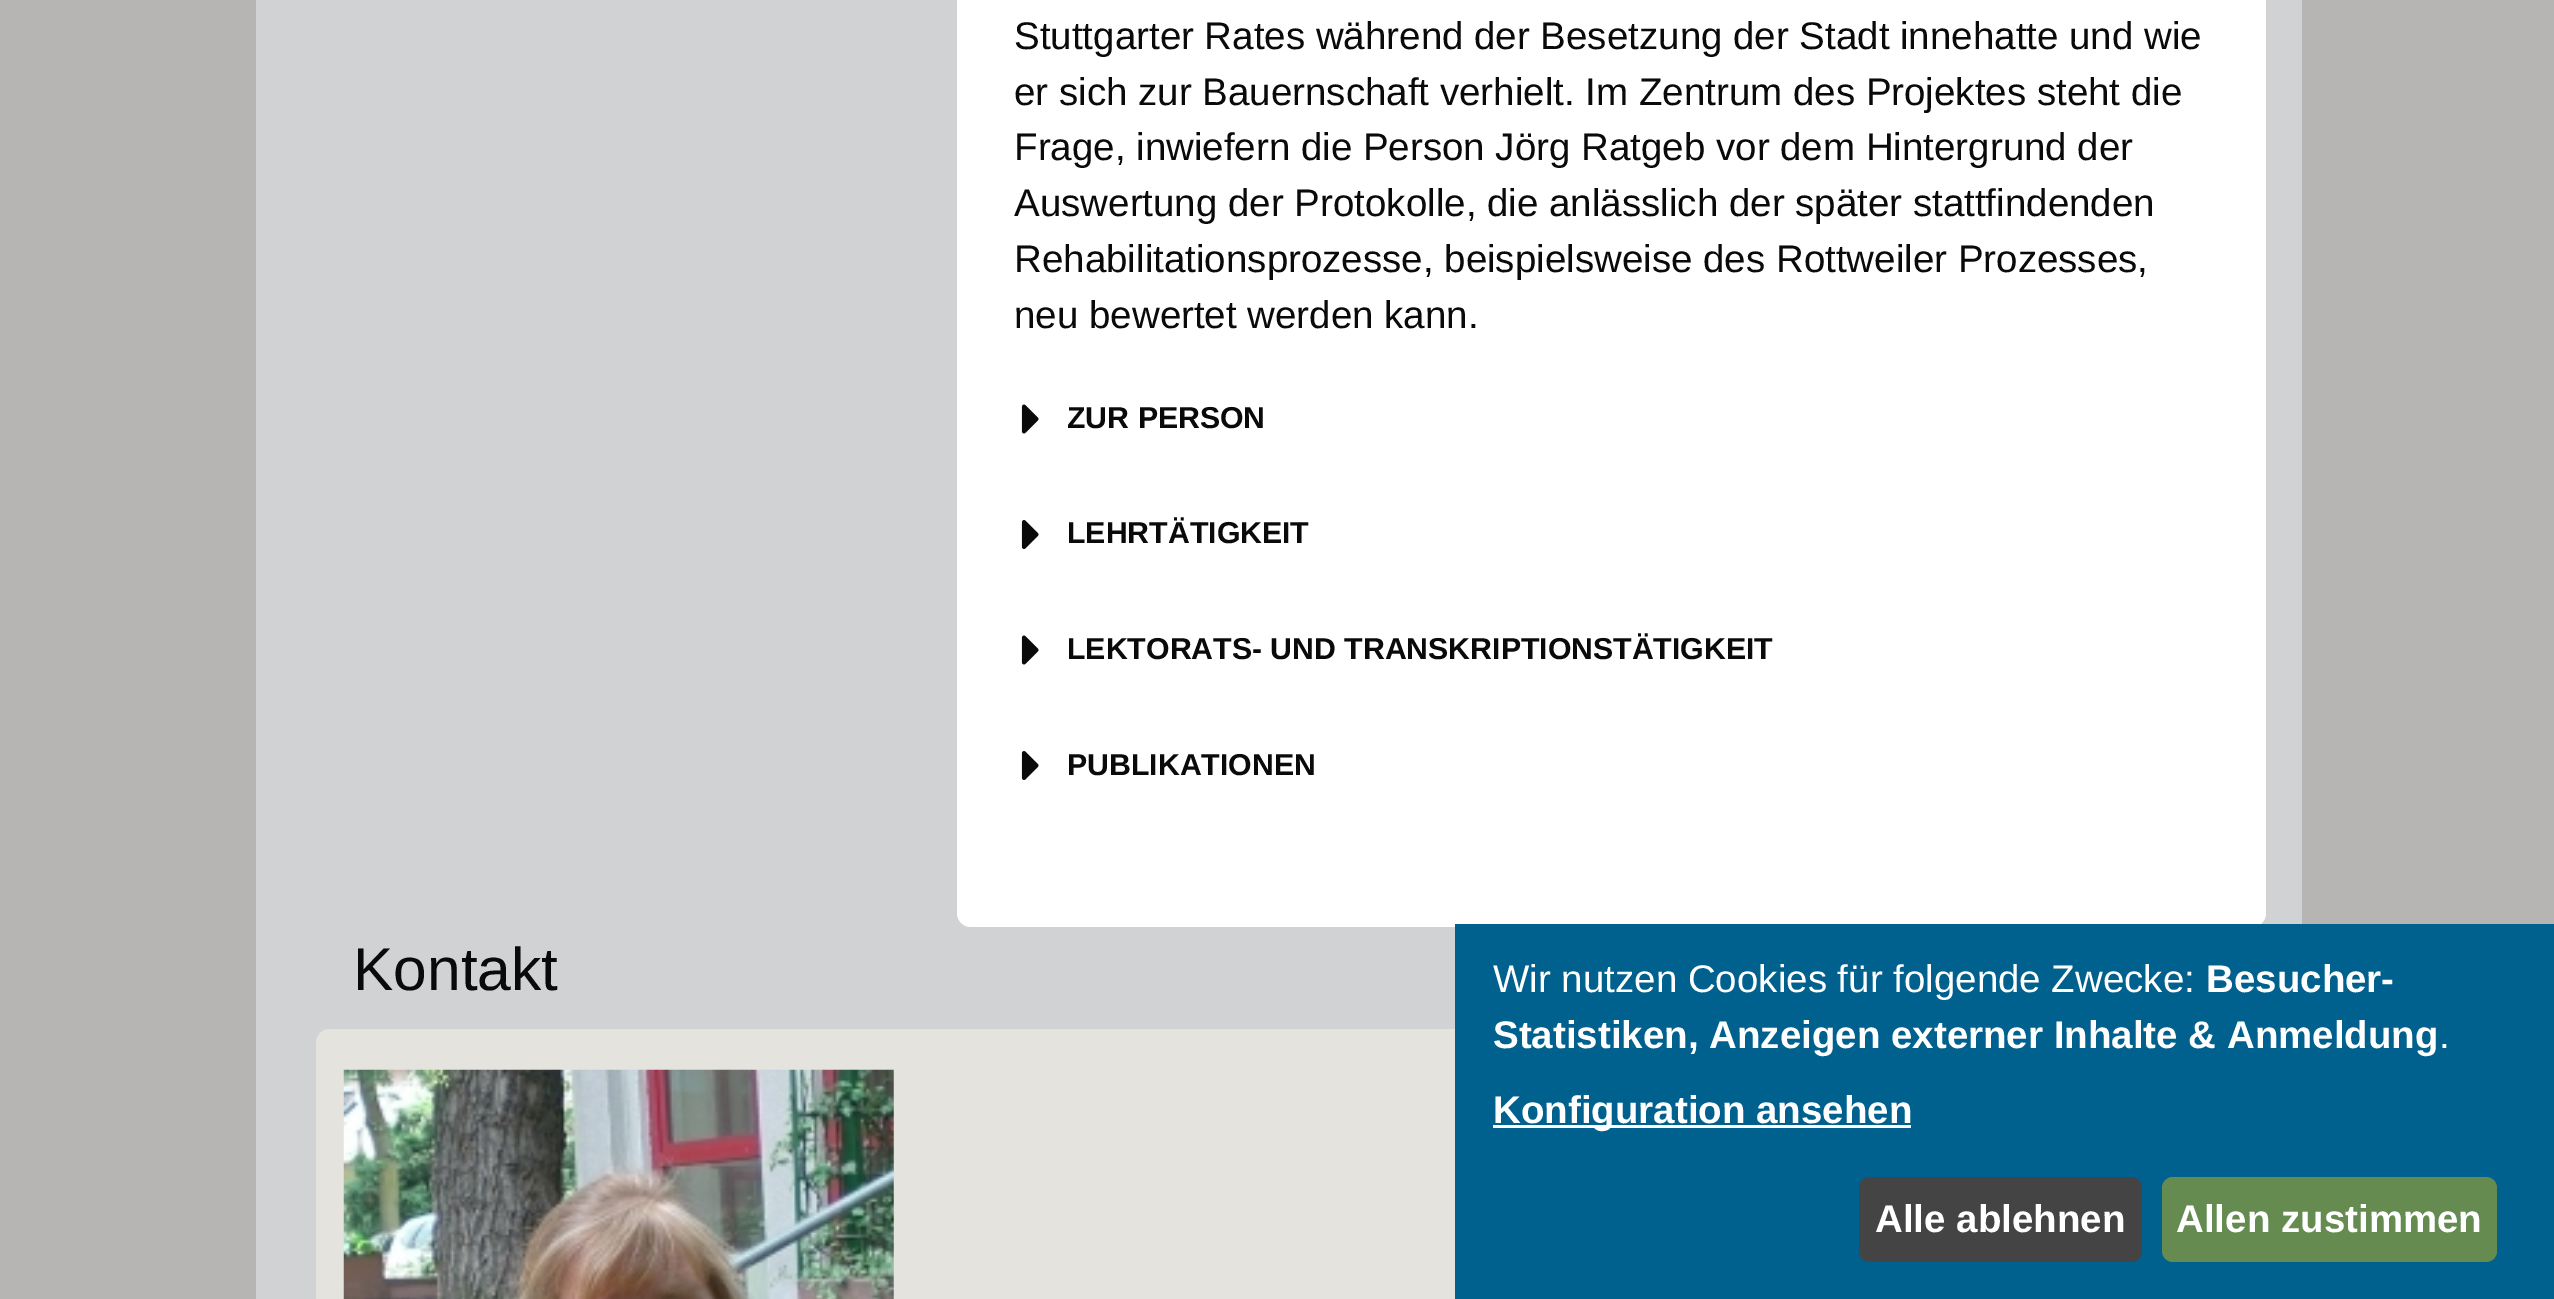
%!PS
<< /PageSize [2554 1299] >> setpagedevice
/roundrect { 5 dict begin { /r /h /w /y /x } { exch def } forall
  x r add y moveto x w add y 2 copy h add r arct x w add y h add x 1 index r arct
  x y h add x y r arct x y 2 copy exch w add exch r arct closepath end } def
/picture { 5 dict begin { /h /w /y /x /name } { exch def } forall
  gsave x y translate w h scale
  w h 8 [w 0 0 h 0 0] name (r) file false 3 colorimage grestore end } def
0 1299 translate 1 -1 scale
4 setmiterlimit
0.718 0.706 0.706 setrgbcolor
0 0 2554 1299 rectfill
0.82 0.824 0.827 setrgbcolor
256 0 2046 1299 rectfill
1 setgray
957 -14 1309 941 14 roundrect fill
/LiberationSans-Regular [38.5 0 0 -38.5 0 0] selectfont
0.039 setgray
1014 49 moveto (Stuttgarter Rates während der Besetzung der Stadt innehatte und wie) show
1014 105 moveto (er sich zur Bauernschaft verhielt. Im Zentrum des Projektes steht die) show
1014 160 moveto (Frage, inwiefern die Person Jörg Ratgeb vor dem Hintergrund der) show
1014 216 moveto (Auswertung der Protokolle, die anlässlich der später stattfindenden) show
1014 272 moveto (Rehabilitationsprozesse, beispielsweise des Rottweiler Prozesses,) show
1014 328 moveto (neu bewertet werden kann.) show
(img1.rgb) 1021 404 18 30 picture
/LiberationSans-Bold [30.25 0 0 -30.25 0 0] selectfont
1067 428 moveto (ZUR PERSON) show
(img2.rgb) 1021 520 18 29 picture
1067 543 moveto (LEHRTÄTIGKEIT) show
(img1.rgb) 1021 635 18 30 picture
1067 659 moveto (LEKTORATS- UND TRANSKRIPTIONSTÄTIGKEIT) show
(img2.rgb) 1021 751 18 29 picture
1067 775 moveto (PUBLIKATIONEN) show
/LiberationSans-Regular [60.5 0 0 -60.5 0 0] selectfont
353 990 moveto (Kontakt) show
0.894 0.89 0.867 setrgbcolor
316 1029 1953 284 14 roundrect fill
(img3.rgb) 343 1069 551 230 picture
0 0.38 0.561 setrgbcolor
1455 924 1099 375 rectfill
/LiberationSans-Regular [38.5 0 0 -38.5 0 0] selectfont
1 setgray
1493 992 moveto (Wir nutzen Cookies für folgende Zwecke:) show
/LiberationSans-Bold [38.5 0 0 -38.5 0 0] selectfont
2206 992 moveto (Besucher-) show
1493 1048 moveto (Statistiken, Anzeigen externer Inhalte & Anmeldung) show
/LiberationSans-Regular [38.5 0 0 -38.5 0 0] selectfont
2439 1048 moveto (.) show
1493 1125 418 3 rectfill
/LiberationSans-Bold [38.5 0 0 -38.5 0 0] selectfont
1493 1123 moveto (Konfiguration ansehen) show
0.267 setgray
1859 1177 283 85 11 roundrect fill
1 setgray
1875 1232 moveto (Alle ablehnen) show
0.396 0.545 0.318 setrgbcolor
2162 1177 335 85 11 roundrect fill
1 setgray
2176 1232 moveto (Allen zustimmen) show
showpage
